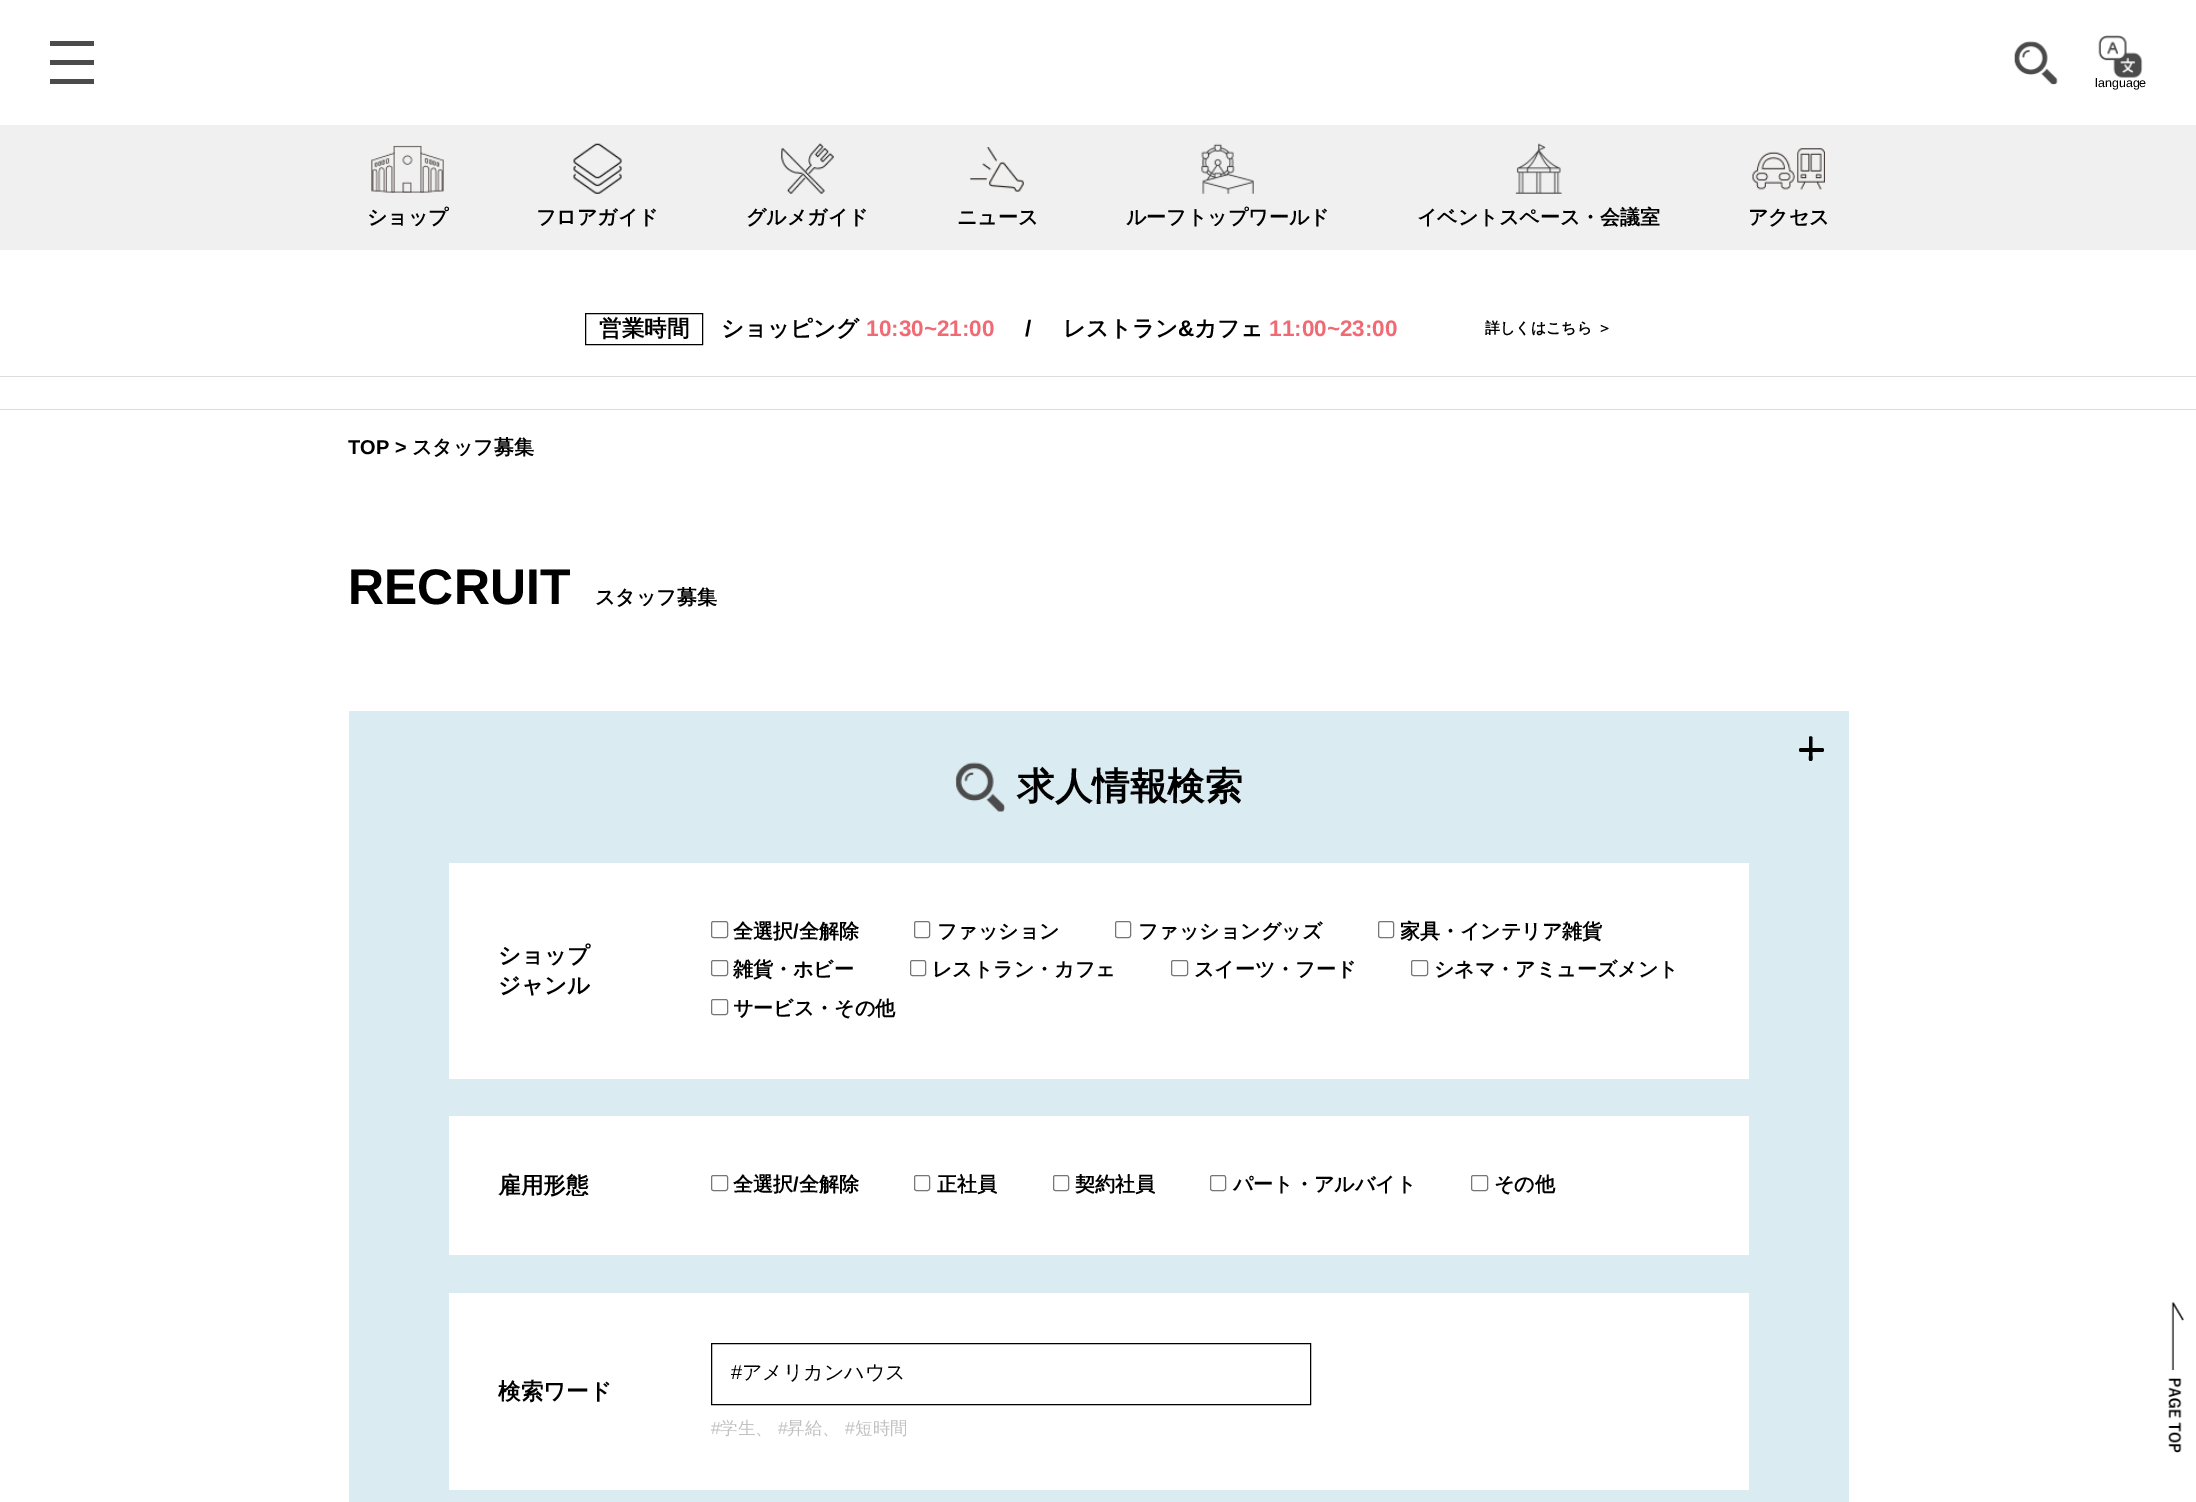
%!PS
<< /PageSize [2196 1502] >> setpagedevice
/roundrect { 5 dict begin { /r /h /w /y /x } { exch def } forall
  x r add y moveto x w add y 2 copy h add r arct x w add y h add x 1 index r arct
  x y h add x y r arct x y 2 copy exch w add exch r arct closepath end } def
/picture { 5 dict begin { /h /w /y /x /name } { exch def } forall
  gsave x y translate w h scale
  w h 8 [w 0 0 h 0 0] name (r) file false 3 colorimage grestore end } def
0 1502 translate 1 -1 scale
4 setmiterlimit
1 setgray
0 0 2196 1502 rectfill
0.294 setgray
50 41 44 5 rectfill
50 60 44 5 rectfill
50 79 44 5 rectfill
(img1.rgb) 2014 41 44 44 picture
(img2.rgb) 2098 35 45 43 picture
/LiberationSans-Regular [12.5 0 0 -12.5 0 0] selectfont
0 setgray
2095 87 moveto (language) show
0.941 setgray
0 125 2196 125 rectfill
(img3.rgb) 371 145 73 48 picture
/WenQuanYiZenHei-Bold [20 0 0 -20 0 0] selectfont
0 setgray
367 224 moveto (ショップ) show
(img4.rgb) 573 143 49 51 picture
536 224 moveto (フロアガイド) show
(img5.rgb) 781 143 53 51 picture
746 224 moveto (グルメガイド) show
(img6.rgb) 970 147 54 45 picture
957 224 moveto (ニュース) show
(img7.rgb) 1201 143 53 51 picture
1126 224 moveto (ルーフトップワールド) show
(img8.rgb) 1515 143 47 51 picture
1417 224 moveto (イベントスペース・会議室) show
(img9.rgb) 1752 148 73 42 picture
1748 224 moveto (アクセス) show
0.867 setgray
0 409 2196 1 rectfill
0 376 2196 1 rectfill
0 setgray
585.5 313.5 117 31 rectstroke
/WenQuanYiZenHei-Bold [22.5 0 0 -22.5 0 0] selectfont
599 336 moveto (営業時間) show
721 336 moveto (ショッピング) show
/LiberationSans-Bold [22.5 0 0 -22.5 0 0] selectfont
0.937 0.416 0.451 setrgbcolor
866 336 moveto (10:30~21:00) show
0 setgray
1025 336 moveto (/) show
/WenQuanYiZenHei-Bold [22.5 0 0 -22.5 0 0] selectfont
1063 336 moveto (レストラン) show
/LiberationSans-Bold [22.5 0 0 -22.5 0 0] selectfont
1178 336 moveto (&) show
/WenQuanYiZenHei-Bold [22.5 0 0 -22.5 0 0] selectfont
1194 336 moveto (カフェ) show
/LiberationSans-Bold [22.5 0 0 -22.5 0 0] selectfont
0.937 0.416 0.451 setrgbcolor
1269 336 moveto (11:00~23:00) show
/WenQuanYiZenHei-Bold [15 0 0 -15 0 0] selectfont
0 setgray
1485 333 moveto (詳しくはこちら ＞) show
/LiberationSans-Bold [20 0 0 -20 0 0] selectfont
348 454 moveto (TOP >) show
/WenQuanYiZenHei-Bold [20 0 0 -20 0 0] selectfont
412 454 moveto (スタッフ募集) show
/LiberationSans-Bold [50 0 0 -50 0 0] selectfont
348 604 moveto (RECRUIT) show
/WenQuanYiZenHei-Bold [20 0 0 -20 0 0] selectfont
595 604 moveto (スタッフ募集) show
0.855 0.922 0.945 setrgbcolor
349 711 1500 791 rectfill
0 setgray
1799 748 25 4 2 roundrect fill
newpath 1812.5 738 moveto 1812.5 756 lineto 1812.5 757 1813.5 761 1810.5 761 curveto 1808 761 1809 757 1809 756 curveto 1809 737.5 lineto 1809.5 735.5 1812.5 736 1812.5 738 curveto closepath fill
(img10.rgb) 955 762 50 50 picture
/WenQuanYiZenHei-Bold [37.5 0 0 -37.5 0 0] selectfont
1017 799 moveto (求人情報検索) show
1 setgray
449 863 1300 216 rectfill
/WenQuanYiZenHei-Bold [22.5 0 0 -22.5 0 0] selectfont
0 setgray
498 963 moveto (ショップ) show
498 993 moveto (ジャンル) show
0.463 setgray
711.5 921.5 16 16 2 roundrect stroke
/WenQuanYiZenHei-Bold [20 0 0 -20 0 0] selectfont
0 setgray
733 938 moveto (全選択) show
/LiberationSans-Bold [20 0 0 -20 0 0] selectfont
793 938 moveto (/) show
/WenQuanYiZenHei-Bold [20 0 0 -20 0 0] selectfont
799 938 moveto (全解除) show
0.463 setgray
914.5 921.5 15 16 2 roundrect stroke
0 setgray
937 938 moveto (ファッション) show
0.463 setgray
1115.5 921.5 15 16 2 roundrect stroke
0 setgray
1138 938 moveto (ファッショングッズ) show
0.463 setgray
1378.5 921.5 15 16 2 roundrect stroke
0 setgray
1400 938 moveto (家具・インテリア雑貨) show
0.463 setgray
711.5 960.5 16 15 2 roundrect stroke
0 setgray
733 976 moveto (雑貨・ホビー) show
0.463 setgray
910.5 960.5 15 15 2 roundrect stroke
0 setgray
932 976 moveto (レストラン・カフェ) show
0.463 setgray
1171.5 960.5 16 15 2 roundrect stroke
0 setgray
1194 976 moveto (スイーツ・フード) show
0.463 setgray
1411.5 960.5 16 15 2 roundrect stroke
0 setgray
1434 976 moveto (シネマ・アミューズメント) show
0.463 setgray
711.5 999.5 16 15 2 roundrect stroke
0 setgray
733 1015 moveto (サービス・その他) show
1 setgray
449 1116 1300 139 rectfill
/WenQuanYiZenHei-Bold [22.5 0 0 -22.5 0 0] selectfont
0 setgray
498 1193 moveto (雇用形態) show
0.463 setgray
711.5 1175.5 16 15 2 roundrect stroke
/WenQuanYiZenHei-Bold [20 0 0 -20 0 0] selectfont
0 setgray
733 1191 moveto (全選択) show
/LiberationSans-Bold [20 0 0 -20 0 0] selectfont
793 1191 moveto (/) show
/WenQuanYiZenHei-Bold [20 0 0 -20 0 0] selectfont
799 1191 moveto (全解除) show
0.463 setgray
914.5 1175.5 15 15 2 roundrect stroke
0 setgray
937 1191 moveto (正社員) show
0.463 setgray
1053.5 1175.5 15 15 2 roundrect stroke
0 setgray
1075 1191 moveto (契約社員) show
0.463 setgray
1210.5 1175.5 15 15 2 roundrect stroke
0 setgray
1233 1191 moveto (パート・アルバイト) show
0.463 setgray
1471.5 1175.5 16 15 2 roundrect stroke
0 setgray
1494 1191 moveto (その他) show
1 setgray
449 1293 1300 197 rectfill
/WenQuanYiZenHei-Bold [22.5 0 0 -22.5 0 0] selectfont
0 setgray
498 1399 moveto (検索ワード) show
711.5 1343.5 599 61 rectstroke
/LiberationSans-Regular [20 0 0 -20 0 0] selectfont
731 1379 moveto (#) show
/WenQuanYiZenHei-Medium [20 0 0 -20 0 0] selectfont
742 1379 moveto (アメリカンハウス) show
/LiberationSans-Regular [17.5 0 0 -17.5 0 0] selectfont
0.757 setgray
711 1434 moveto (#) show
/WenQuanYiZenHei-Medium [17.5 0 0 -17.5 0 0] selectfont
720 1434 moveto (学生、) show
/LiberationSans-Regular [17.5 0 0 -17.5 0 0] selectfont
778 1434 moveto (#) show
/WenQuanYiZenHei-Medium [17.5 0 0 -17.5 0 0] selectfont
787 1434 moveto (昇給、) show
/LiberationSans-Regular [17.5 0 0 -17.5 0 0] selectfont
845 1434 moveto (#) show
/WenQuanYiZenHei-Medium [17.5 0 0 -17.5 0 0] selectfont
855 1434 moveto (短時間) show
(img11.rgb) 2168 1302 16 151 picture
showpage
